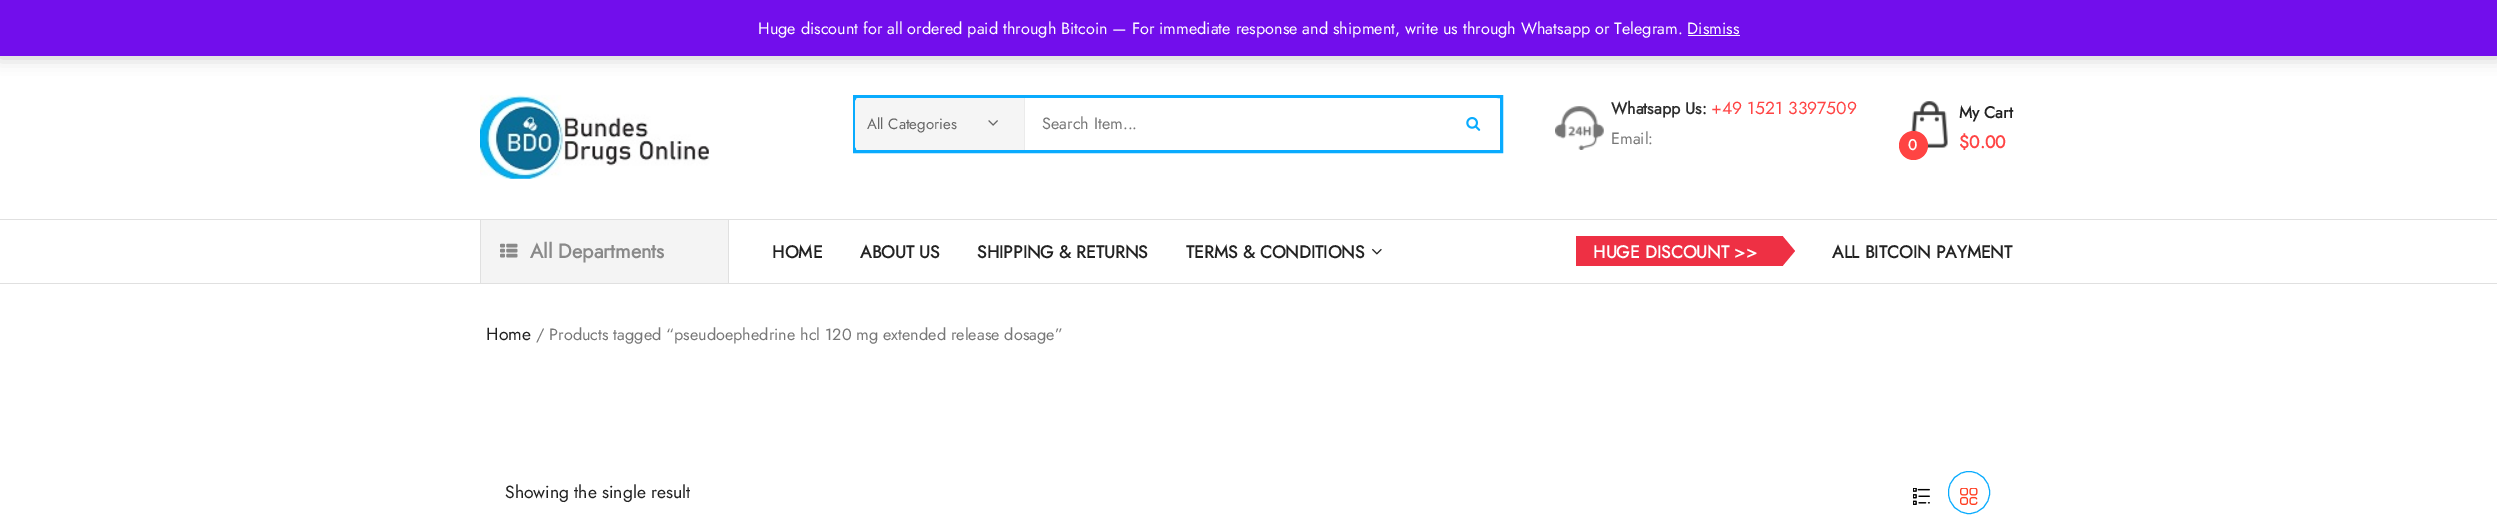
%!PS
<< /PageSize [2497 529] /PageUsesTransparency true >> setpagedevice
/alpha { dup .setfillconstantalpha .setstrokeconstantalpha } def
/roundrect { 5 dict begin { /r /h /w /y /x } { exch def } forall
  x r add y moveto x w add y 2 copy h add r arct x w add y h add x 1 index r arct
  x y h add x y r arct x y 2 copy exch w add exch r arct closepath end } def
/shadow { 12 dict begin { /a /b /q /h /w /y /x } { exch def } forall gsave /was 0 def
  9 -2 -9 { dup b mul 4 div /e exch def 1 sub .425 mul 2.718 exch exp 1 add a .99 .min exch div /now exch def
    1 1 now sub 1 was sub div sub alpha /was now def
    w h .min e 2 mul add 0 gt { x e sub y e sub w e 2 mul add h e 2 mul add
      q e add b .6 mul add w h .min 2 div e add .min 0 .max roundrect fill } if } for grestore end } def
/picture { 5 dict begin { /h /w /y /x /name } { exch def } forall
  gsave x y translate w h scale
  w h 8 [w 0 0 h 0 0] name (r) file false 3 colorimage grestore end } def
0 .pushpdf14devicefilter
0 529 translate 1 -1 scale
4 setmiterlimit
1 setgray
0 0 2497 529 rectfill
0 setgray
0 1 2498 57 0 8 0.2 shadow
0.447 0.055 0.925 setrgbcolor
0 0 2497 56 rectfill
/Jost-Regular [16.25 0 0 -16.25 0 0] selectfont
1 setgray
758 34 moveto (Huge discount for all ordered paid through Bitcoin — For immediate response and shipment, write us through Whatsapp or Telegram. Dismiss) show
0.988 0.984 0.996 setrgbcolor
1688 35 52 1 rectfill
(img1.rgb) 480 95 230 84 picture
0.035 0.671 0.996 setrgbcolor
3 setlinewidth
854.5 96.5 647 55 rectstroke
1 setgray
855 98 645 52 5 roundrect fill
0.922 setgray
1024 98 1 52 rectfill
0.961 setgray
newpath 860 98 moveto 1024 98 lineto 1024 150 lineto 860 150 lineto 857 150 855 148 855 145 curveto 855 103 lineto 855 100 857 98 860 98 curveto closepath fill
/Jost-Regular [15 0 0 -15 0 0] selectfont
0.4 setgray
867 129 moveto (All Categories) show
(img2.rgb) 988 120 10 6 picture
/Jost-Regular [16.25 0 0 -16.25 0 0] selectfont
0.467 setgray
1042 129 moveto (Search Item...) show
(img3.rgb) 1466 117 15 14 picture
(img4.rgb) 1555 106 49 44 picture
/Jost-Bold [16.25 0 0 -16.25 0 0] selectfont
0.176 setgray
1611 114 moveto (Whatsapp Us:) show
/Jost-Regular [17.5 0 0 -17.5 0 0] selectfont
1 0.267 0.267 setrgbcolor
1711 114 moveto (+49 1521 3397509) show
/Jost-Regular [16.25 0 0 -16.25 0 0] selectfont
0.467 setgray
1611 144 moveto (Email:) show
(img5.rgb) 1911 101 37 47 picture
/Jost-Bold [16.25 0 0 -16.25 0 0] selectfont
0.133 setgray
1959 118 moveto (My Cart) show
1 0.267 0.263 setrgbcolor
newpath 1913.5 145.5 14.5 0 360 arc closepath fill
/Jost-Bold [15 0 0 -15 0 0] selectfont
1 setgray
1908 150 moveto (0) show
/Jost-Bold [17.5 0 0 -17.5 0 0] selectfont
1 0.267 0.267 setrgbcolor
1959 148 moveto ($0.00) show
0.878 setgray
0 219 2497 1 rectfill
0 283 2497 1 rectfill
0.957 setgray
481 220 247 63 rectfill
0.878 setgray
728 220 1 63 rectfill
480 220 1 63 rectfill
(img6.rgb) 500 243 18 15 picture
/Jost-Bold [20 0 0 -20 0 0] selectfont
0.537 setgray
530 258 moveto (All Departments) show
/Jost-Bold [17.5 0 0 -17.5 0 0] selectfont
0.133 setgray
772 258 moveto (HOME) show
860 258 moveto (ABOUT US) show
977 258 moveto (SHIPPING & RETURNS) show
1186 258 moveto (TERMS & CONDITIONS) show
(img7.rgb) 1372 248 10 7 picture
0.933 0.188 0.267 setrgbcolor
1576 236 207 30 rectfill
1 setgray
1593 258 moveto (HUGE DISCOUNT >>) show
0.933 0.188 0.267 setrgbcolor
newpath 1782.5 266 moveto 1782.5 236 lineto 1795 251 lineto closepath fill
0.133 setgray
1832 258 moveto (ALL BITCOIN PAYMENT) show
/Jost-Regular [17.5 0 0 -17.5 0 0] selectfont
486 340 moveto (Home) show
/Jost-Regular [16.25 0 0 -16.25 0 0] selectfont
0.467 setgray
536 340 moveto (/ Products tagged “pseudoephedrine hcl 120 mg extended release dosage”) show
/Jost-Regular [17.5 0 0 -17.5 0 0] selectfont
0.133 setgray
505 498 moveto (Showing the single result) show
(img8.rgb) 1913 488 17 17 picture
0.035 0.671 0.996 setrgbcolor
1 setlinewidth
1948.5 471.5 41 42 20.5 roundrect stroke
(img9.rgb) 1960 488 18 17 picture
.poppdf14devicefilter showpage
